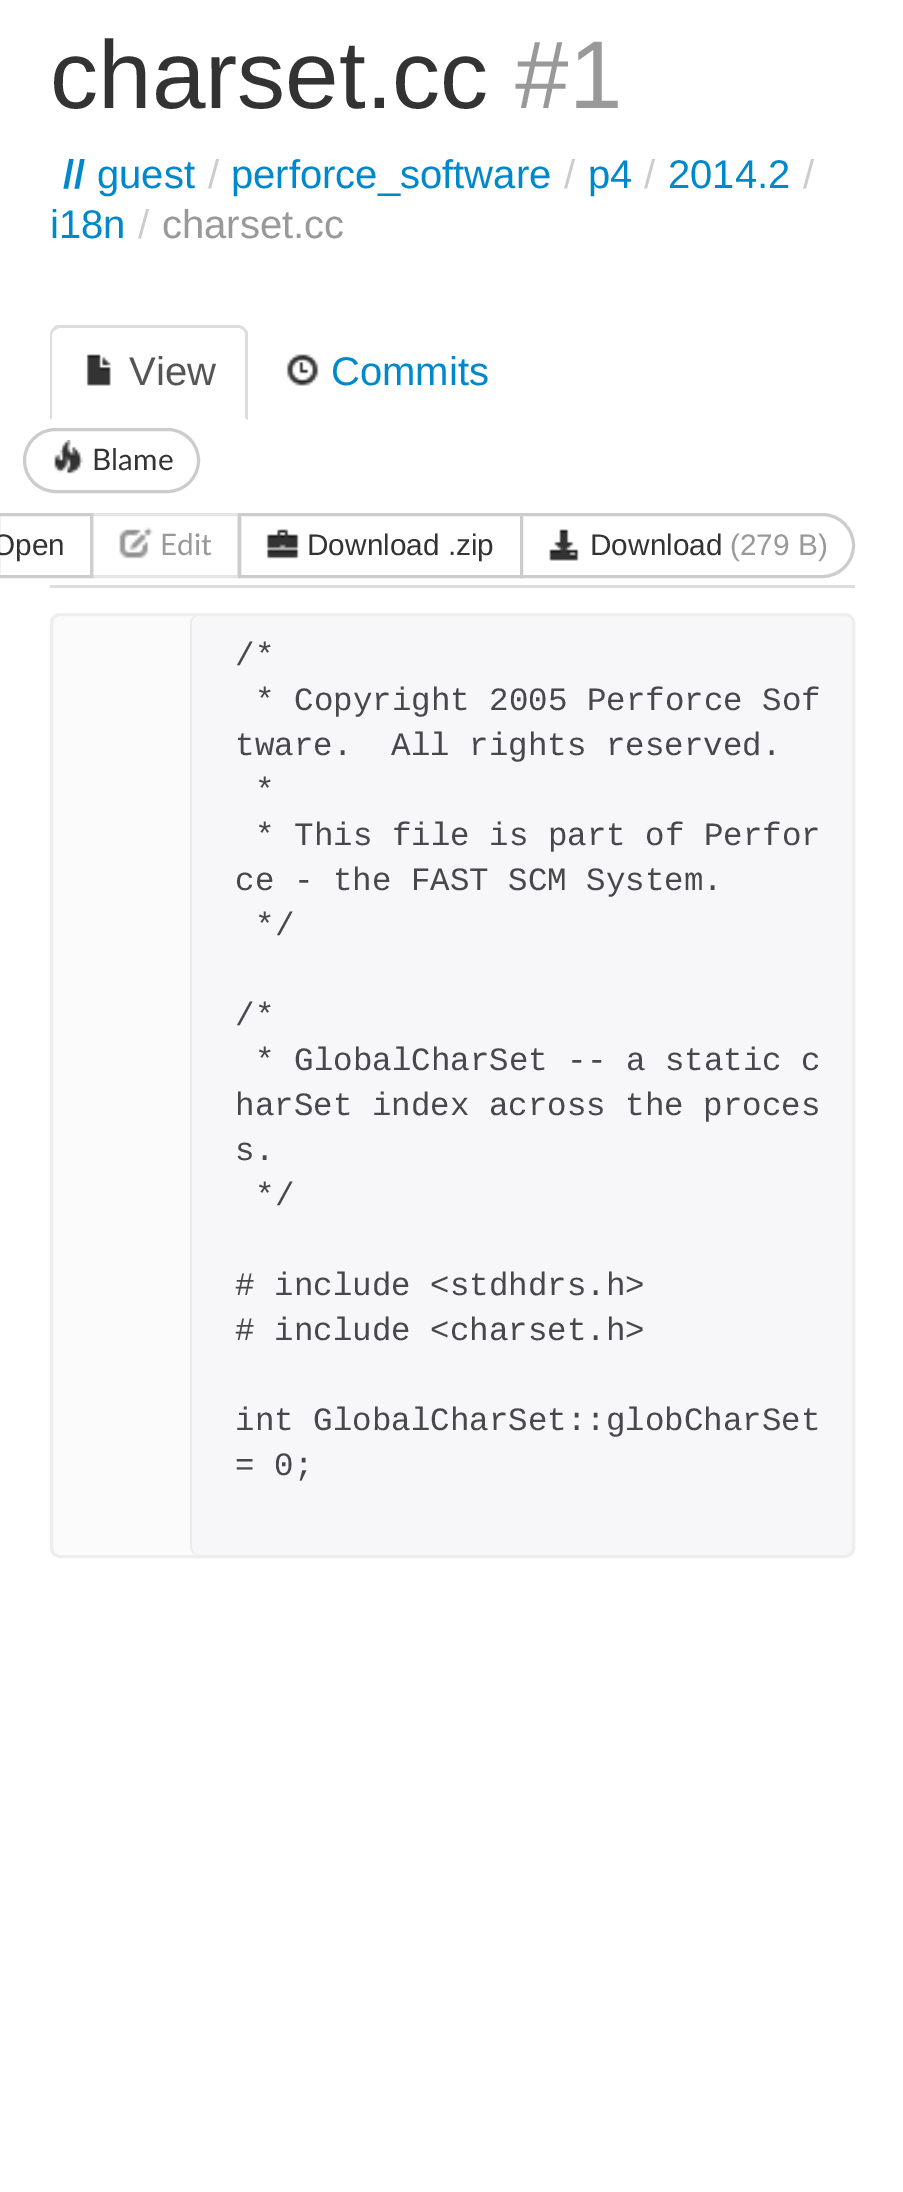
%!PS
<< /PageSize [903 2192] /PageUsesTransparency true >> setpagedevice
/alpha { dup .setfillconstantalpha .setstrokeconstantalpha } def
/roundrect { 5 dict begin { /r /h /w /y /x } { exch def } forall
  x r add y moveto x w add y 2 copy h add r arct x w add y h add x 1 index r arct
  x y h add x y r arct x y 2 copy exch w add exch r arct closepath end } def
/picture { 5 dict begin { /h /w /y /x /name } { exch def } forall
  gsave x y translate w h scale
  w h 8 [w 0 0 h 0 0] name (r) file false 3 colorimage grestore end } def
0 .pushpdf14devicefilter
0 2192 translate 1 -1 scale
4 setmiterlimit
1 setgray
0 0 903 2192 rectfill
/Arimo-Regular [96.25 0 0 -96.25 0 0] selectfont
0.2 setgray
50 108 moveto (charset.cc) show
0.6 setgray
515 108 moveto (#1) show
/Arimo-Bold [40 0 0 -40 0 0] selectfont
0 0.533 0.8 setrgbcolor
63 188 moveto (//) show
/Arimo-Regular [40 0 0 -40 0 0] selectfont
97 188 moveto (guest) show
0.8 setgray
208 188 moveto (/) show
0 0.533 0.8 setrgbcolor
231 188 moveto (perforce_software) show
0.8 setgray
564 188 moveto (/) show
0 0.533 0.8 setrgbcolor
588 188 moveto (p4) show
0.8 setgray
644 188 moveto (/) show
0 0.533 0.8 setrgbcolor
668 188 moveto (2014.2) show
0.8 setgray
803 188 moveto (/) show
0 0.533 0.8 setrgbcolor
50 238 moveto (i18n) show
0.8 setgray
138 238 moveto (/) show
0.6 setgray
162 238 moveto (charset.cc) show
0.867 setgray
50 585 805 3 rectfill
newpath 60 325 moveto 57 325 54 326 53 328 curveto 55 330 lineto 59 328 lineto 239 328 lineto 240 328 242 329 243 330 curveto 245 328 lineto 243 326 240 325 238 325 curveto closepath fill
newpath 248 332 moveto 248 420 lineto 245 418 lineto 245 333 lineto 243 330 lineto 245 328 lineto closepath fill
newpath 50 420 moveto 52 418 lineto 52 335 lineto 52 333 53 331 55 330 curveto 53 328 lineto 51 330 50 332 50 335 curveto closepath fill
(img1.rgb) 86 354 25 32 picture
0.333 setgray
129 385 moveto (View) show
(img2.rgb) 286 354 33 32 picture
0 0.533 0.8 setrgbcolor
331 385 moveto (Commits) show
0.8 setgray
3 setlinewidth
24.5 429.5 174 62 31 roundrect stroke
(img3.rgb) 54 440 30 34 picture
/Lato-Regular [29.75 0 0 -29.75 0 0] selectfont
0.2 setgray
92 470 moveto (Blame) show
0.8 setgray
-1.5 514.5 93 62 rectstroke
/Arimo-Regular [29.75 0 0 -29.75 0 0] selectfont
0.2 setgray
-8 555 moveto (Open) show
0.5 alpha
1 setgray
90 513 3 65 rectfill
0.1 alpha
0 setgray
91.5 514.5 147 62 rectstroke
1 alpha
(img4.rgb) 119 527 34 32 picture
/Lato-Regular [29.75 0 0 -29.75 0 0] selectfont
0.6 setgray
160 555 moveto (Edit) show
0.8 setgray
239.5 514.5 282 62 rectstroke
(img5.rgb) 266 529 33 30 picture
/Arimo-Regular [29.75 0 0 -29.75 0 0] selectfont
0.2 setgray
307 555 moveto (Download .zip) show
1 setgray
newpath 521.5 514.5 moveto 822.5 514.5 lineto 839.5 514.5 853.5 528.5 853.5 545.5 curveto 853.5 562.5 839.5 576.5 822.5 576.5 curveto 521.5 576.5 lineto closepath gsave fill grestore
0.8 setgray
stroke
(img6.rgb) 549 529 30 32 picture
0.2 setgray
590 555 moveto (Download) show
0.6 setgray
730 555 moveto (\(279 B\)) show
0.969 0.969 0.976 setrgbcolor
50 613 805 945 10 roundrect fill
0.925 0.925 0.941 setrgbcolor
newpath 61 615 moveto 57 615 53 619 53 623 curveto 53 1547 lineto 53 1551 57 1555 61 1555 curveto 200 1555 lineto 196 1555 192 1552 192 1548 curveto 192 622 lineto 192 618 196 615 200 615 curveto closepath fill
0.984 0.984 0.988 setrgbcolor
newpath 61 615 moveto 57 615 53 619 53 623 curveto 53 1547 lineto 53 1551 57 1555 61 1555 curveto 198 1555 lineto 193 1555 190 1552 190 1548 curveto 190 622 lineto 190 618 193 615 198 615 curveto closepath fill
0.933 setgray
51.5 614.5 802 942 8.5 roundrect stroke
/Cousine-Regular [32.5 0 0 -32.5 0 0] selectfont
0.282 0.282 0.298 setrgbcolor
235 665 moveto (/*) show
255 710 moveto (* Copyright 2005 Perforce Sof) show
235 755 moveto (tware.  All rights reserved.) show
255 800 moveto (*) show
255 845 moveto (* This file is part of Perfor) show
235 890 moveto (ce - the FAST SCM System.) show
255 935 moveto (*/) show
235 1025 moveto (/*) show
255 1070 moveto (* GlobalCharSet -- a static c) show
235 1115 moveto (harSet index across the proces) show
235 1160 moveto (s.) show
255 1205 moveto (*/) show
235 1295 moveto (# include <stdhdrs.h>) show
235 1340 moveto (# include <charset.h>) show
235 1430 moveto (int GlobalCharSet::globCharSet) show
235 1475 moveto (= 0;) show
.poppdf14devicefilter showpage
